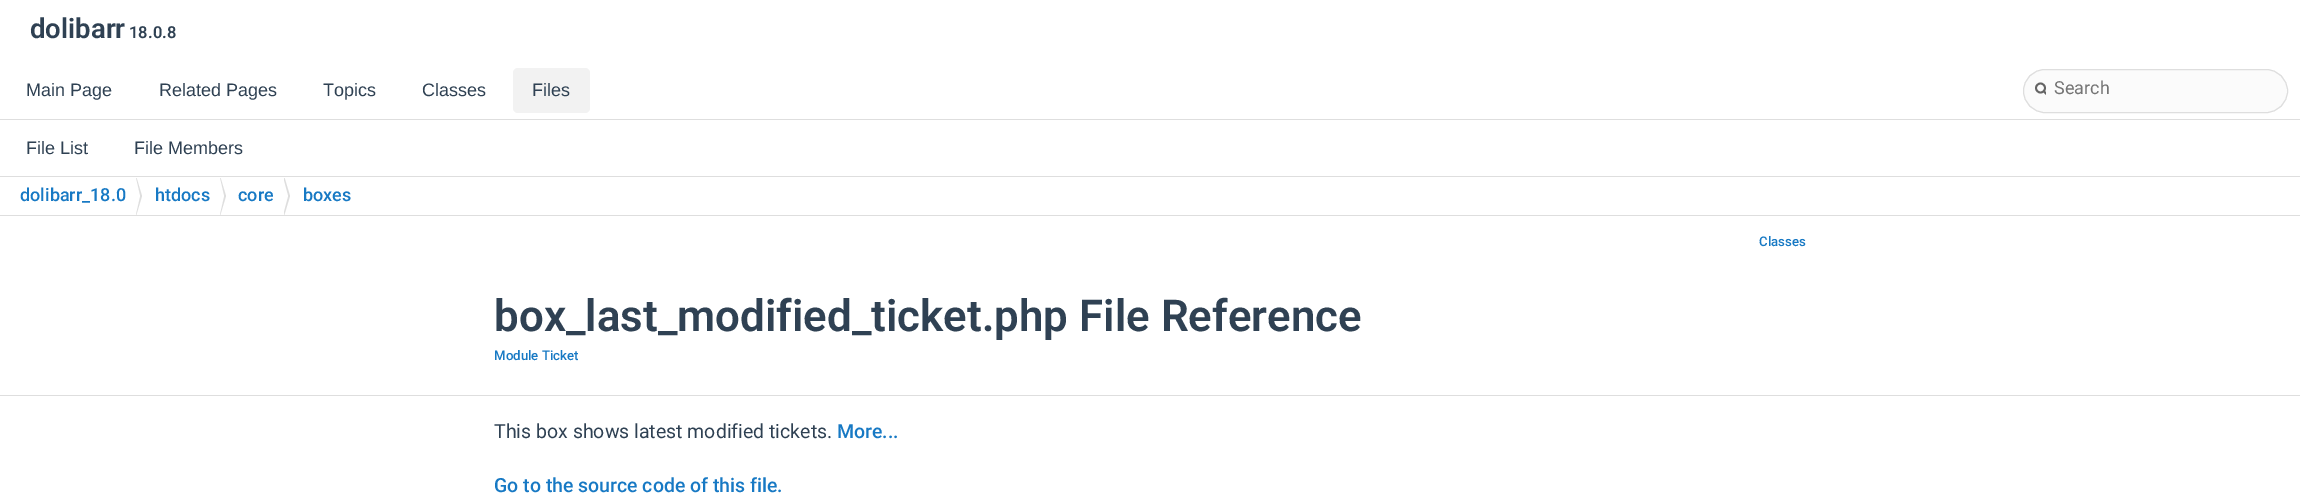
%!PS
<< /PageSize [2300 499] >> setpagedevice
/roundrect { 5 dict begin { /r /h /w /y /x } { exch def } forall
  x r add y moveto x w add y 2 copy h add r arct x w add y h add x 1 index r arct
  x y h add x y r arct x y 2 copy exch w add exch r arct closepath end } def
0 499 translate 1 -1 scale
4 setmiterlimit
1 setgray
0 0 2300 499 rectfill
0.871 setgray
0 215 2300 1 rectfill
/Roboto-SemiBold [27.5 0 0 -27.5 0 0] selectfont
0.184 0.255 0.325 setrgbcolor
30 38 moveto (dolibarr) show
/Roboto-SemiBold [16.5 0 0 -16.5 0 0] selectfont
129 38 moveto (18.0.8) show
0.871 setgray
0 119 2300 1 rectfill
/LiberationSans-Regular [18 0 0 -18 0 0] selectfont
0.184 0.255 0.325 setrgbcolor
26 96 moveto (Main Page) show
159 96 moveto (Related Pages) show
323 96 moveto (Topics) show
422 96 moveto (Classes) show
0.949 setgray
513 68 77 45 5 roundrect fill
0.184 0.255 0.325 setrgbcolor
532 96 moveto (Files) show
0.984 setgray
2023.5 69.5 264 43 21.5 roundrect gsave fill grestore
0.871 setgray
stroke
0.396 setgray
1.8 setlinewidth
newpath 2040.5 88 4.5 0 360 arc closepath stroke
gsave
2034 78 12 23 rectclip
1 setlinecap
newpath 2044 91.5 moveto 2047.5 95 lineto stroke
grestore
/Roboto-Regular [18 0 0 -18 0 0] selectfont
0.459 setgray
2054 94 moveto (Search) show
/LiberationSans-Regular [18 0 0 -18 0 0] selectfont
0.184 0.255 0.325 setrgbcolor
26 154 moveto (File List) show
134 154 moveto (File Members) show
0.871 setgray
0 176 2300 1 rectfill
/Roboto-Medium [18 0 0 -18 0 0] selectfont
0.09 0.475 0.769 setrgbcolor
20 201 moveto (dolibarr_18.0) show
gsave
0 178 2300 37 rectclip
0.871 setgray
newpath 136 216 moveto 136 176 lineto 142 196 lineto closepath fill
1 setgray
newpath 134 222 moveto 134 170 lineto 140 196 lineto closepath fill
grestore
155 201 moveto (htdocs) show
gsave
0 178 2300 37 rectclip
0.871 setgray
newpath 220 216 moveto 220 176 lineto 226 196 lineto closepath fill
1 setgray
newpath 218 222 moveto 218 170 lineto 224 196 lineto closepath fill
grestore
238 201 moveto (core) show
gsave
0 178 2300 37 rectclip
0.871 setgray
newpath 284 216 moveto 284 176 lineto 290 196 lineto closepath fill
1 setgray
newpath 281 222 moveto 281 170 lineto 288 196 lineto closepath fill
grestore
303 201 moveto (boxes) show
0.871 setgray
0 395 2300 1 rectfill
/Roboto-Medium [13.25 0 0 -13.25 0 0] selectfont
0.09 0.475 0.769 setrgbcolor
1759 246 moveto (Classes) show
/Roboto-SemiBold [43.9 0 0 -43.9 0 0] selectfont
0.184 0.255 0.325 setrgbcolor
494 331 moveto (box_last_modified_ticket.php File Reference) show
/Roboto-Medium [13.25 0 0 -13.25 0 0] selectfont
0.09 0.475 0.769 setrgbcolor
494 360 moveto (Module Ticket) show
/Roboto-Regular [19.5 0 0 -19.5 0 0] selectfont
0.184 0.255 0.325 setrgbcolor
494 438 moveto (This box shows latest modified tickets.) show
/Roboto-Medium [19.5 0 0 -19.5 0 0] selectfont
0.09 0.475 0.769 setrgbcolor
837 438 moveto (More...) show
494 492 moveto (Go to the source code of this file.) show
showpage
